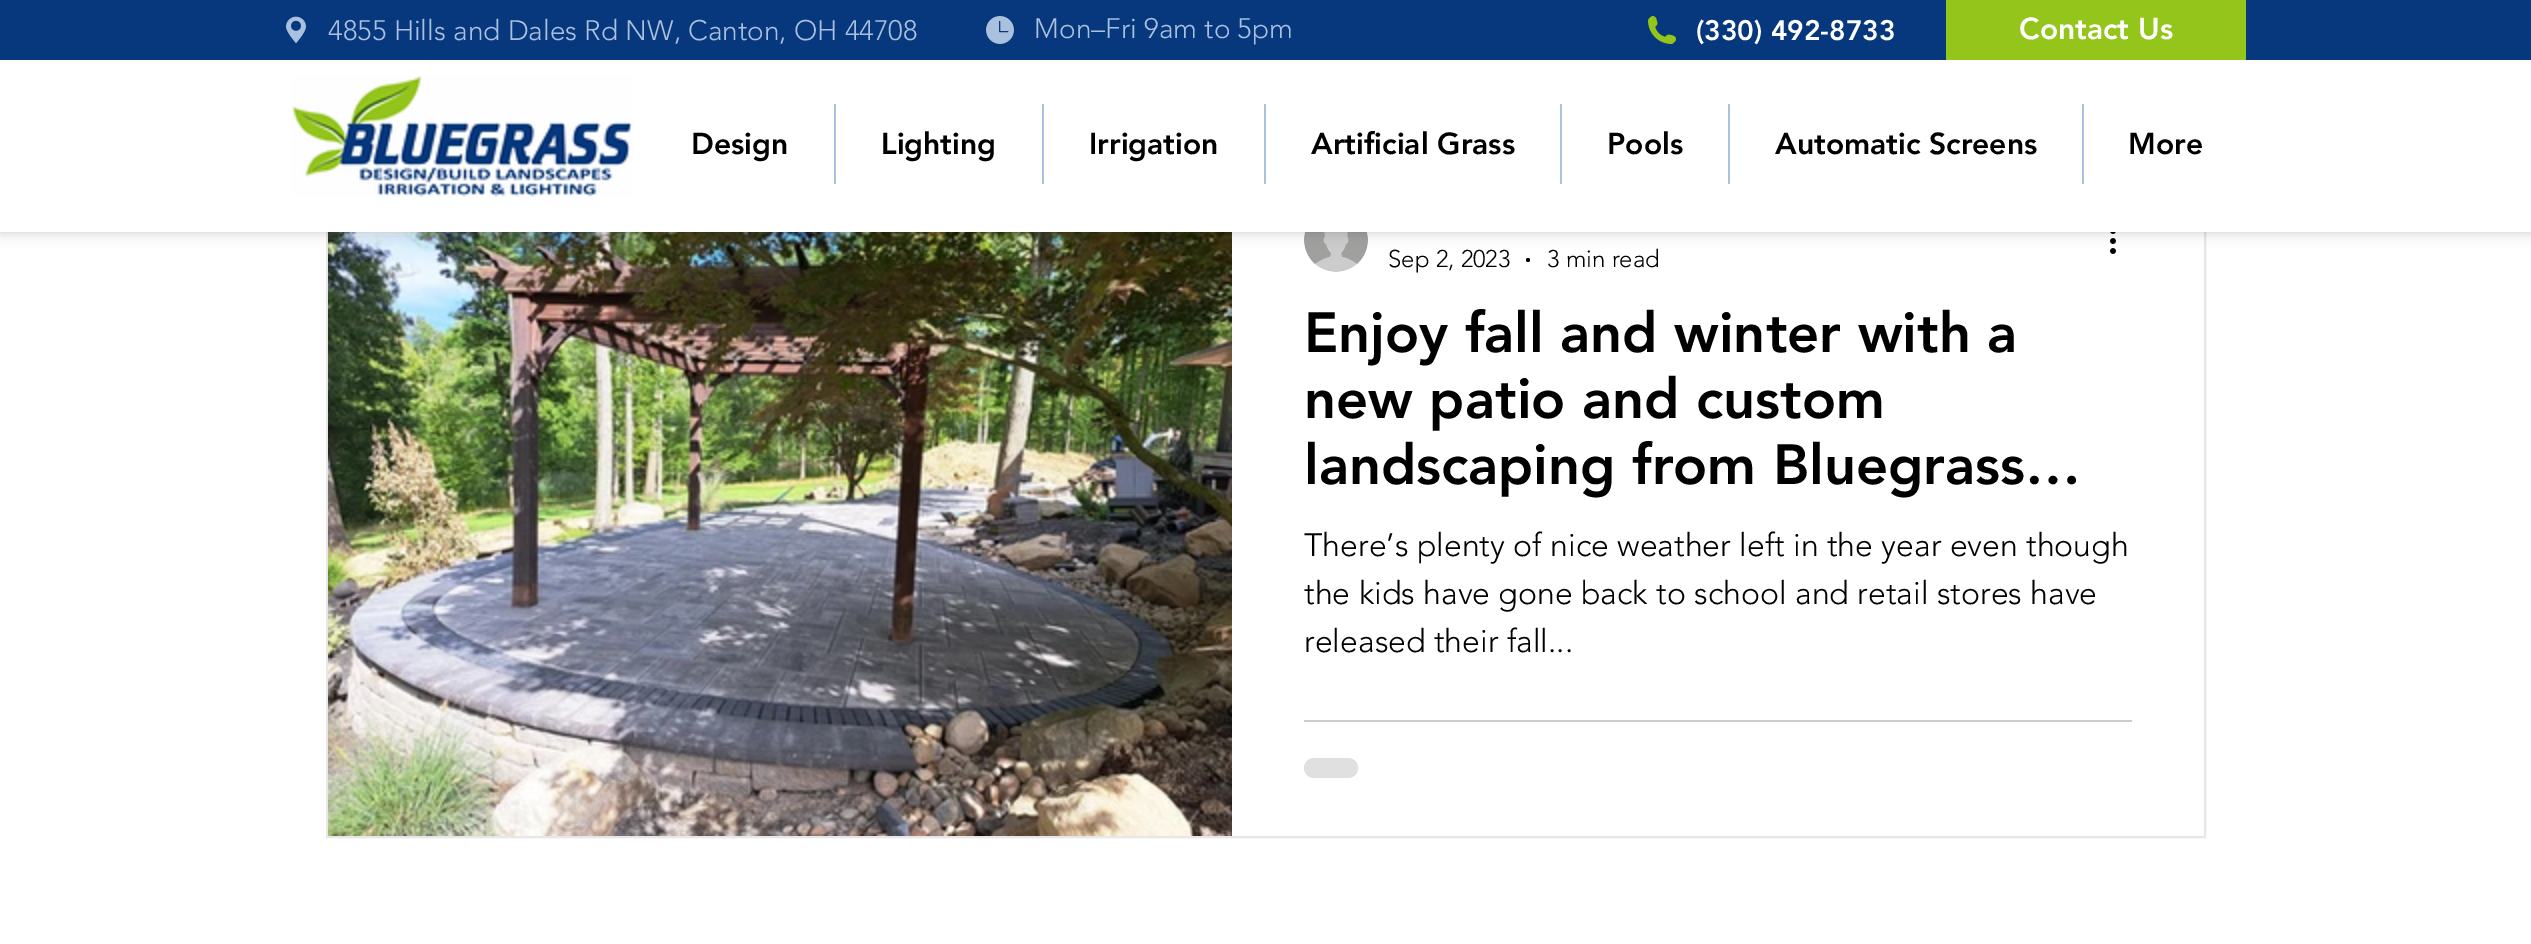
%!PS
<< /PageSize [2531 944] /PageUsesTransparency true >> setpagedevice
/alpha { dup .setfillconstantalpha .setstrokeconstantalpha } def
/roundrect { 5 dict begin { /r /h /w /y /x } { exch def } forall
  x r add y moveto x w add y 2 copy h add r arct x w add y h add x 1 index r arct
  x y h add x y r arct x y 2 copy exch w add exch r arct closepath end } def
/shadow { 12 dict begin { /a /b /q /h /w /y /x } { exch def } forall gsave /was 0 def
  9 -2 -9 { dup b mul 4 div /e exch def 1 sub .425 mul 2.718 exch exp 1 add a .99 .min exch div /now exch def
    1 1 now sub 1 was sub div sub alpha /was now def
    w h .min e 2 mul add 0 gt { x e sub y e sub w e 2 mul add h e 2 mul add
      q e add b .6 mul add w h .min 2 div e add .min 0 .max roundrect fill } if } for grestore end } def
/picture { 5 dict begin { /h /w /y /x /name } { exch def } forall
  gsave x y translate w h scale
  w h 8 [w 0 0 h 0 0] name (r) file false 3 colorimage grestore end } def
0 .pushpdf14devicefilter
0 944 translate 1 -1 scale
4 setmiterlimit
1 setgray
0 0 2531 944 rectfill
0.91 0.902 0.902 setrgbcolor
2 setlinewidth
327 157 1878 680 rectstroke
(img5.rgb) 328 232 904 604 picture
(img6.rgb) 2110 232 6 22 picture
(img7.rgb) 1304 232 64 40 picture
0 setgray
0 0 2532 232 0 7 0.2 shadow
1 setgray
0 60 2531 172 rectfill
0.027 0.22 0.494 setrgbcolor
0 0 2531 60 rectfill
(img1.rgb) 286 16 20 28 picture
/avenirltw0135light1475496-Light [28 0 0 -28 0 0] selectfont
0.667 0.753 0.875 setrgbcolor
328 40 moveto (4855 Hills and Dales Rd NW, Canton, OH 44708) show
(img2.rgb) 986 16 28 28 picture
1034 38 moveto (Mon–Fri 9am to 5pm) show
(img3.rgb) 1648 16 28 28 picture
/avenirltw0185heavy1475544-Black [28 0 0 -28 0 0] selectfont
1 setgray
1696 40 moveto (\(330\) 492-8733) show
0.576 0.773 0.106 setrgbcolor
1946 0 300 60 rectfill
/avenirltw0185heavy1475544-Black [30 0 0 -30 0 0] selectfont
1 setgray
2019 39 moveto (Contact Us) show
(img4.rgb) 291 75 342 122 picture
0 setgray
691 154 moveto (Design) show
0.667 0.753 0.875 setrgbcolor
834 104 2 80 rectfill
0 setgray
881 154 moveto (Lighting) show
0.667 0.753 0.875 setrgbcolor
1042 104 2 80 rectfill
0 setgray
1089 154 moveto (Irrigation) show
0.667 0.753 0.875 setrgbcolor
1264 104 2 80 rectfill
0 setgray
1311 154 moveto (Artificial Grass) show
0.667 0.753 0.875 setrgbcolor
1560 104 2 80 rectfill
0 setgray
1607 154 moveto (Pools) show
0.667 0.753 0.875 setrgbcolor
1728 104 2 80 rectfill
0 setgray
1775 154 moveto (Automatic Screens) show
0.667 0.753 0.875 setrgbcolor
2082 104 2 80 rectfill
0 setgray
2128 154 moveto (More) show
/avenirltw0135light1475496-Light [24 0 0 -24 0 0] selectfont
1388 267 moveto (Sep 2, 2023) show
newpath 1528 260 2 0 360 arc closepath fill
1547 267 moveto (3 min read) show
/avenirltw0185heavy1475544-Black [56 0 0 -56 0 0] selectfont
1304 352 moveto (Enjoy fall and winter with a) show
1304 418 moveto (new patio and custom) show
1304 484 moveto (landscaping from Bluegrass…) show
/avenirltw0135light1475496-Light [32 0 0 -32 0 0] selectfont
1304 556 moveto (There’s plenty of nice weather left in the year even though) show
1304 604 moveto (the kids have gone back to school and retail stores have) show
1304 652 moveto (released their fall...) show
0.8 setgray
1304 720 828 2 rectfill
0.878 setgray
1304 758 54 20 10 roundrect fill
.poppdf14devicefilter showpage
